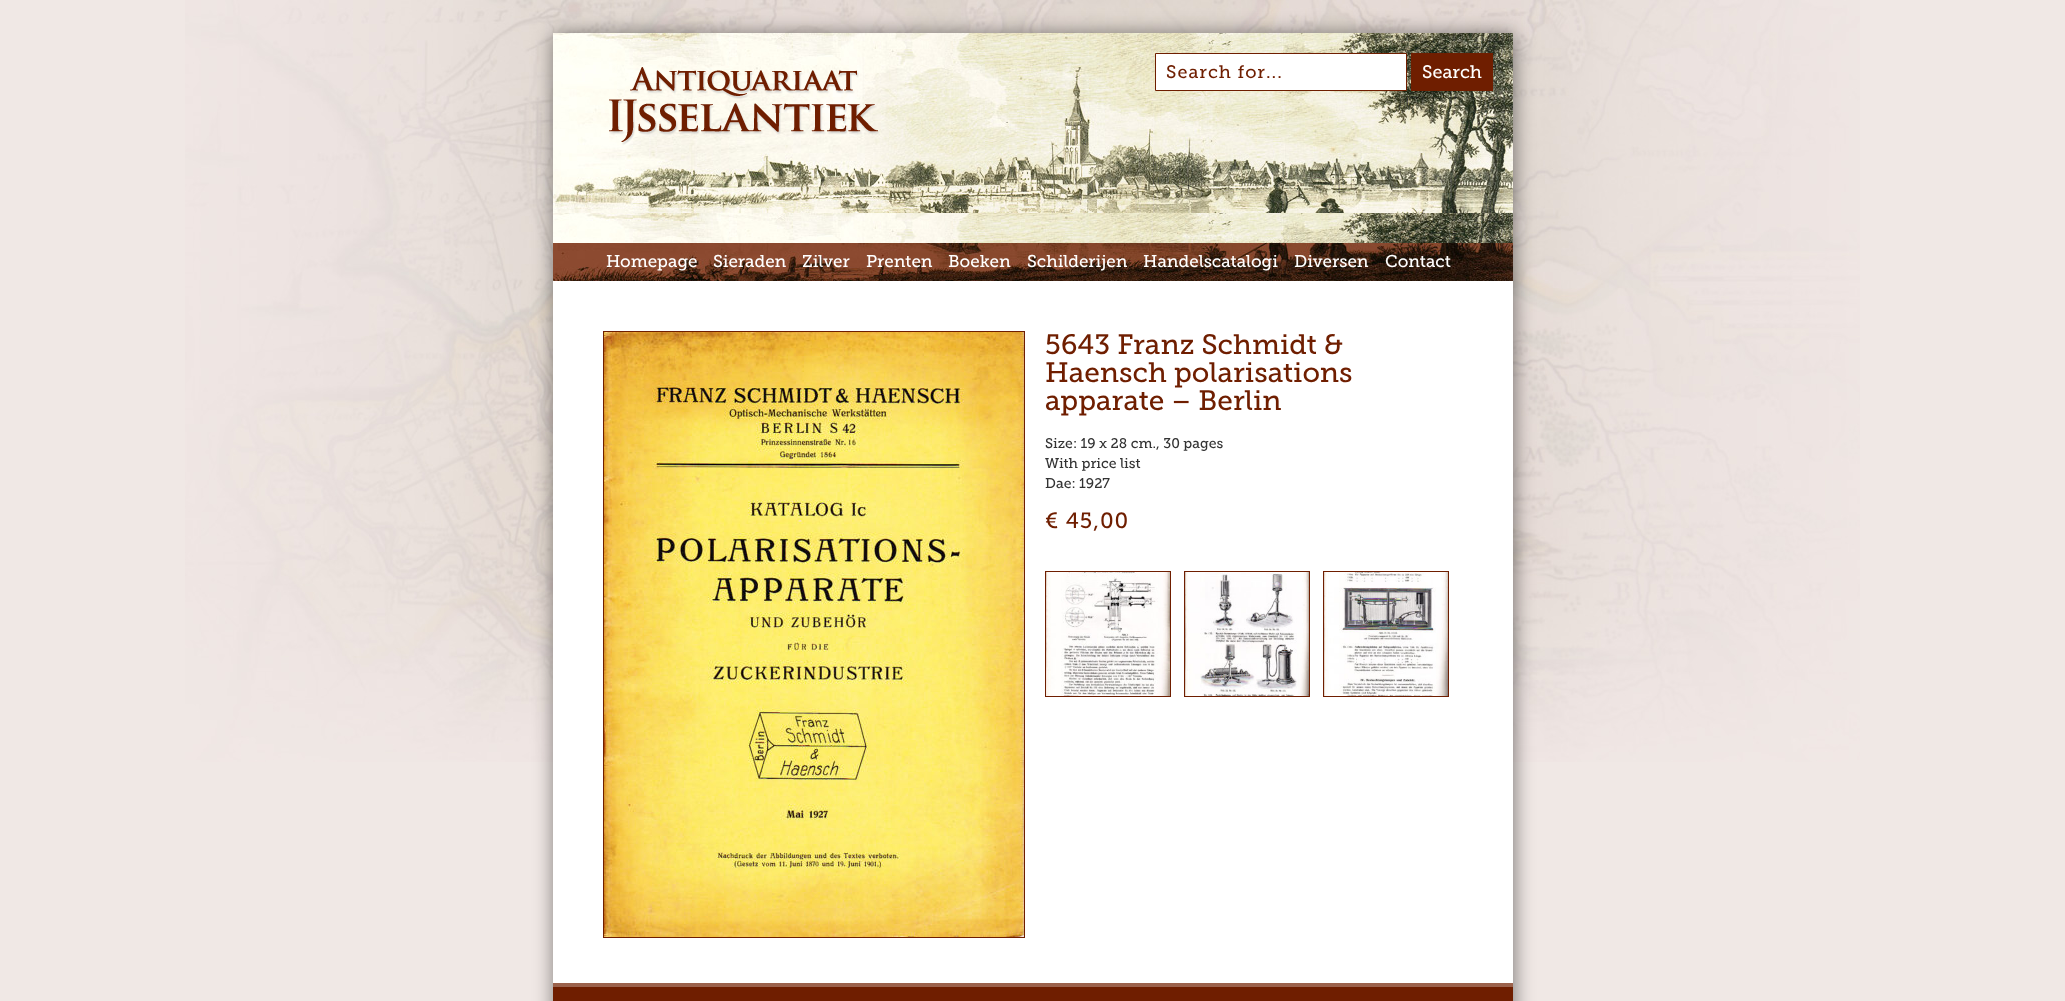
<!DOCTYPE html>
<meta charset="utf-8">
<style>body { margin: 0 } canvas { display: block }</style>
<canvas id="canvas" width="2065" height="1001"></canvas>
<script type="module">
  const canvas = document.getElementById("canvas");
  const ctx = canvas.getContext("2d");
  ctx.miterLimit = 4;
  ctx.fontKerning = "normal";
  async function loadImage(src) {
    const img = new Image();
    img.src = src;
    await img.decode();
    return img;
  }

  ctx.fillStyle = "#f0e8e5";
  ctx.fillRect(0, 0, 2065, 1001);
  ctx.drawImage(await loadImage("img1.png"), 185, 0, 1675, 762);
  ctx.fillStyle = "rgba(0, 0, 0, 0.5)";
  ctx.filter = "blur(10px)";
  ctx.beginPath();
  ctx.rect(554, 34, 960, 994);
  ctx.fill();
  ctx.filter = "none";
  ctx.fillStyle = "#ffffff";
  ctx.fillRect(553, 281, 960, 702);
  ctx.drawImage(await loadImage("img2.png"), 553, 33, 960, 210);
  ctx.drawImage(await loadImage("img3.png"), 609, 67, 271, 78);
  ctx.beginPath();
  ctx.rect(1155.5, 53.5, 251, 37);
  ctx.fill();
  ctx.strokeStyle = "#6f1e00";
  ctx.stroke();
  ctx.letterSpacing = "1px";
  ctx.font = "18px Museo Slab";
  ctx.fillStyle = "#6f1e00";
  ctx.fillText("Search for...", 1166, 78);
  ctx.fillRect(1411, 53, 82, 38);
  ctx.letterSpacing = "0px";
  ctx.fillStyle = "#ffffff";
  ctx.fillText("Search", 1422, 78);
  ctx.drawImage(await loadImage("img4.png"), 553, 243, 960, 38);
  ctx.font = "17px Museo Slab";
  ctx.fillText("Homepage", 606, 267);
  ctx.fillText("Sieraden", 713, 267);
  ctx.fillText("Zilver", 802, 267);
  ctx.fillText("Prenten", 866, 267);
  ctx.fillText("Boeken", 948, 267);
  ctx.fillText("Schilderijen", 1027, 267);
  ctx.fillText("Handelscatalogi", 1143, 267);
  ctx.fillText("Diversen", 1294, 267);
  ctx.fillText("Contact", 1385, 267);
  ctx.strokeRect(603.5, 331.5, 421, 606);
  ctx.drawImage(await loadImage("img5.png"), 604, 332, 420, 605);
  ctx.font = "28px Museo Slab";
  ctx.fillStyle = "#6f1e00";
  ctx.fillText("5643 Franz Schmidt &", 1045, 354);
  ctx.fillText("Haensch polarisations", 1045, 382);
  ctx.fillText("apparate – Berlin", 1045, 410);
  ctx.font = "14px Museo Slab";
  ctx.fillStyle = "#333333";
  ctx.fillText("Size: 19 x 28 cm., 30 pages", 1045, 448);
  ctx.fillText("With price list", 1045, 468);
  ctx.fillText("Dae: 1927", 1045, 488);
  ctx.letterSpacing = "1px";
  ctx.font = "22px Museo Slab";
  ctx.fillStyle = "#6f1e00";
  ctx.fillText("€ 45,00", 1045, 528);
  ctx.strokeRect(1045.5, 571.5, 125, 125);
  ctx.drawImage(await loadImage("img6.png"), 1046, 572, 124, 124);
  ctx.strokeRect(1184.5, 571.5, 125, 125);
  ctx.drawImage(await loadImage("img7.png"), 1185, 572, 124, 124);
  ctx.strokeRect(1323.5, 571.5, 125, 125);
  ctx.drawImage(await loadImage("img8.png"), 1324, 572, 124, 124);
  ctx.fillRect(553, 987, 960, 14);
  ctx.fillStyle = "#9b624c";
  ctx.fillRect(553, 983, 960, 4);
</script>
